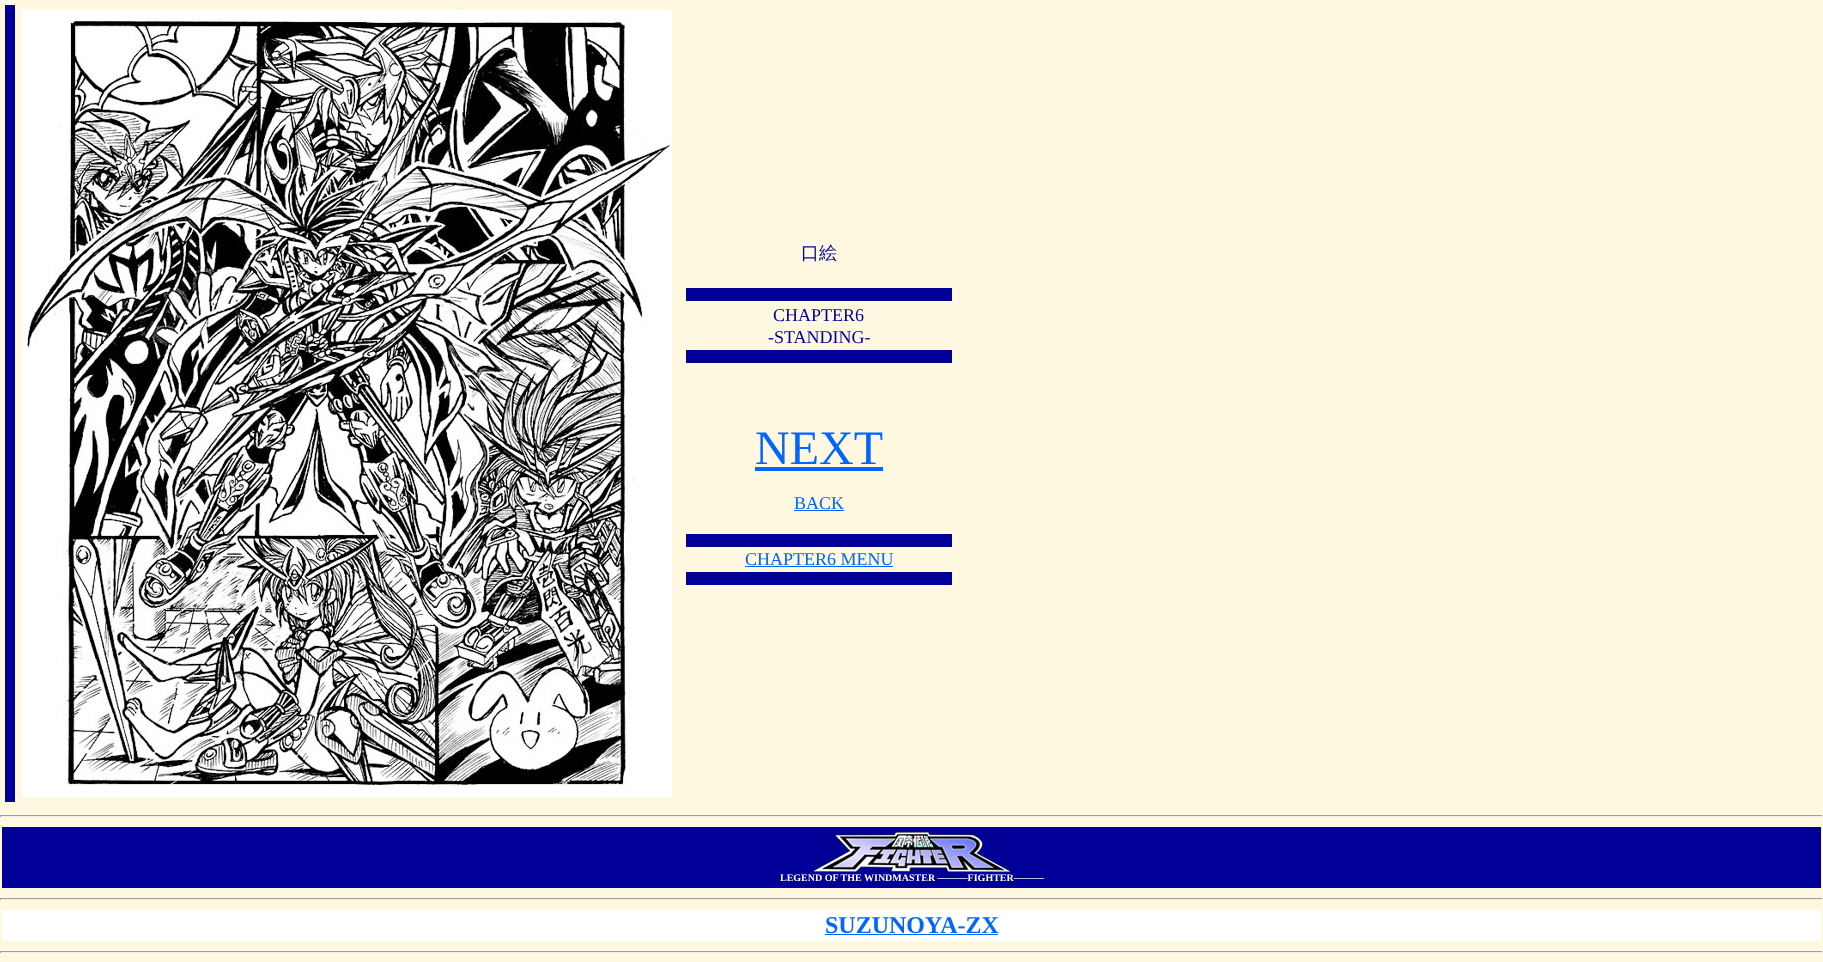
<!DOCTYPE html>
<meta charset="utf-8">
<style>body { margin: 0 } canvas { display: block }</style>
<canvas id="canvas" width="1823" height="962"></canvas>
<script type="module">
  const canvas = document.getElementById("canvas");
  const ctx = canvas.getContext("2d");
  ctx.miterLimit = 4;
  ctx.fontKerning = "normal";
  async function loadImage(src) {
    const img = new Image();
    img.src = src;
    await img.decode();
    return img;
  }

  ctx.fillStyle = "#fef8e0";
  ctx.fillRect(0, 0, 1823, 962);
  ctx.fillStyle = "#000099";
  ctx.fillRect(5, 5, 10, 797);
  ctx.drawImage(await loadImage("img1.png"), 22, 10, 650, 787);
  ctx.font = "500 18px WenQuanYi Zen Hei";
  ctx.fillText("口絵", 801, 259);
  ctx.fillRect(686, 288, 266, 13);
  ctx.font = "18px Liberation Serif";
  ctx.fillText("CHAPTER6", 773, 321);
  ctx.fillText("-STANDING-", 768, 343);
  ctx.fillRect(686, 350, 266, 13);
  ctx.font = "48px Liberation Serif";
  ctx.fillStyle = "#0066ff";
  ctx.fillText("NEXT", 755, 464);
  ctx.fillRect(755, 467, 128, 4);
  ctx.font = "18px Liberation Serif";
  ctx.fillText("BACK", 794, 509);
  ctx.fillRect(794, 510, 50, 1);
  ctx.fillStyle = "#000099";
  ctx.fillRect(686, 534, 266, 13);
  ctx.fillStyle = "#0066ff";
  ctx.fillText("CHAPTER6 MENU", 745, 565);
  ctx.fillRect(745, 566, 148, 1);
  ctx.fillStyle = "#000099";
  ctx.fillRect(686, 572, 266, 13);
  ctx.fillStyle = "#9f9f9f";
  ctx.fillRect(0, 815, 1823, 1);
  ctx.fillStyle = "#eeeeee";
  ctx.fillRect(1822, 815, 1, 2);
  ctx.fillRect(0, 816, 1823, 1);
  ctx.fillStyle = "#9f9f9f";
  ctx.fillRect(0, 815, 1, 2);
  ctx.fillStyle = "#000099";
  ctx.fillRect(2, 827, 1819, 61);
  ctx.drawImage(await loadImage("img2.png"), 812, 832, 200, 40);
  ctx.font = "bold 10px Liberation Serif";
  ctx.fillStyle = "#ffffff";
  ctx.fillText("LEGEND OF THE WINDMASTER ―――FIGHTER―――", 780, 881);
  ctx.fillStyle = "#9f9f9f";
  ctx.fillRect(0, 898, 1823, 1);
  ctx.fillStyle = "#eeeeee";
  ctx.fillRect(1822, 898, 1, 2);
  ctx.fillRect(0, 899, 1823, 1);
  ctx.fillStyle = "#9f9f9f";
  ctx.fillRect(0, 898, 1, 2);
  ctx.fillStyle = "#ffffff";
  ctx.fillRect(2, 910, 1819, 31);
  ctx.font = "bold 24px Liberation Serif";
  ctx.fillStyle = "#0066ff";
  ctx.fillText("SUZUNOYA-ZX", 825, 933);
  ctx.fillRect(825, 934, 173, 1);
  ctx.fillStyle = "#9f9f9f";
  ctx.fillRect(0, 951, 1823, 1);
  ctx.fillStyle = "#eeeeee";
  ctx.fillRect(1822, 951, 1, 2);
  ctx.fillRect(0, 952, 1823, 1);
  ctx.fillStyle = "#9f9f9f";
  ctx.fillRect(0, 951, 1, 2);
</script>
